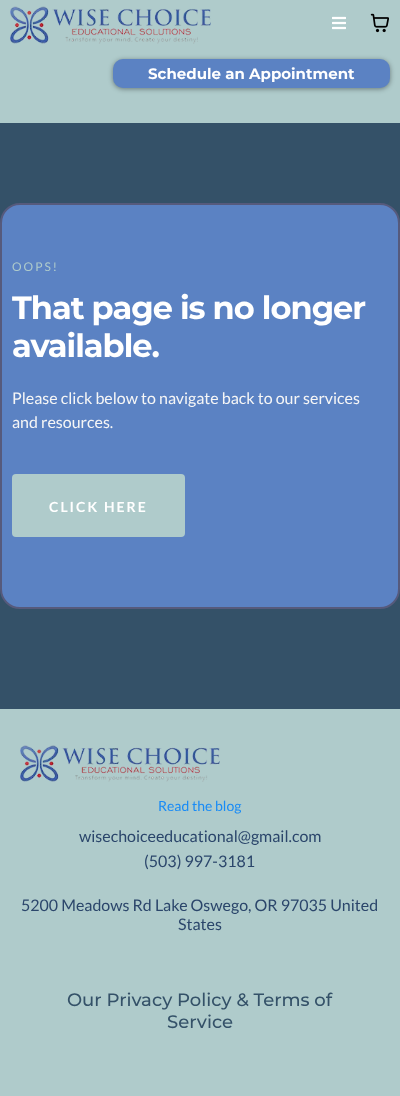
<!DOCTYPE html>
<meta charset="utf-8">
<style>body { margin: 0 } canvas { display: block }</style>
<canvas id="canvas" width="400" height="1096"></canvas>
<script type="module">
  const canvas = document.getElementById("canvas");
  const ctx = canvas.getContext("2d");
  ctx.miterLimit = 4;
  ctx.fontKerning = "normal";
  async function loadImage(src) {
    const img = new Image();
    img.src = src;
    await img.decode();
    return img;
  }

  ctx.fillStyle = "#afcbcb";
  ctx.fillRect(0, 0, 400, 1096);
  ctx.drawImage(await loadImage("img1.png"), 10, 6, 201, 38);
  ctx.drawImage(await loadImage("img2.png"), 332, 16, 14, 14);
  ctx.drawImage(await loadImage("img3.png"), 370, 13, 19, 20);
  ctx.fillStyle = "rgba(0, 0, 0, 0.4)";
  ctx.filter = "blur(2.5px)";
  ctx.beginPath();
  ctx.roundRect(113, 60, 277, 29, 10);
  ctx.fill();
  ctx.filter = "none";
  ctx.fillStyle = "#5b82c3";
  ctx.beginPath();
  ctx.roundRect(113, 59, 277, 29, 10);
  ctx.fill();
  ctx.font = "bold 15px Montserrat";
  ctx.fillStyle = "#ffffff";
  ctx.fillText("Schedule an Appointment", 148, 79);
  ctx.fillStyle = "#345168";
  ctx.fillRect(0, 123, 400, 586);
  ctx.fillStyle = "#5b82c3";
  ctx.beginPath();
  ctx.roundRect(1, 204, 398, 404, 19);
  ctx.fill();
  ctx.strokeStyle = "#565a7c";
  ctx.lineWidth = 2;
  ctx.stroke();
  ctx.letterSpacing = "2px";
  ctx.font = "12px Lato";
  ctx.fillStyle = "#afcbcb";
  ctx.fillText("OOPS!", 12, 271);
  ctx.letterSpacing = "-1px";
  ctx.font = "bold 32px Montserrat";
  ctx.fillStyle = "#ffffff";
  ctx.fillText("That page is no longer", 12, 319);
  ctx.fillText("available.", 12, 357);
  ctx.letterSpacing = "0px";
  ctx.font = "16px Lato";
  ctx.fillStyle = "#f6f6f6";
  ctx.fillText("Please click below to navigate back to our services", 12, 404);
  ctx.fillText("and resources.", 12, 428);
  ctx.fillStyle = "#afcbcb";
  ctx.beginPath();
  ctx.roundRect(12, 474, 173, 63, 4);
  ctx.fill();
  ctx.letterSpacing = "2px";
  ctx.font = "bold 14px Lato";
  ctx.fillStyle = "#ffffff";
  ctx.fillText("CLICK HERE", 49, 512);
  ctx.drawImage(await loadImage("img4.png"), 20, 745, 200, 37);
  ctx.letterSpacing = "0px";
  ctx.font = "14px Lato";
  ctx.fillStyle = "#188bf6";
  ctx.fillText("Read the blog", 158, 811);
  ctx.font = "16px Lato";
  ctx.fillStyle = "#2b466b";
  ctx.fillText("wisechoiceeducational@gmail.com", 79, 842);
  ctx.fillText("(503) 997-3181", 144, 867);
  ctx.fillText("5200 Meadows Rd Lake Oswego, OR 97035 United", 21, 911);
  ctx.fillText("States", 178, 930);
  ctx.font = "500 18px Montserrat";
  ctx.fillStyle = "#345168";
  ctx.fillText("Our Privacy Policy & Terms of", 67, 1006);
  ctx.fillText("Service", 167, 1028);
</script>
